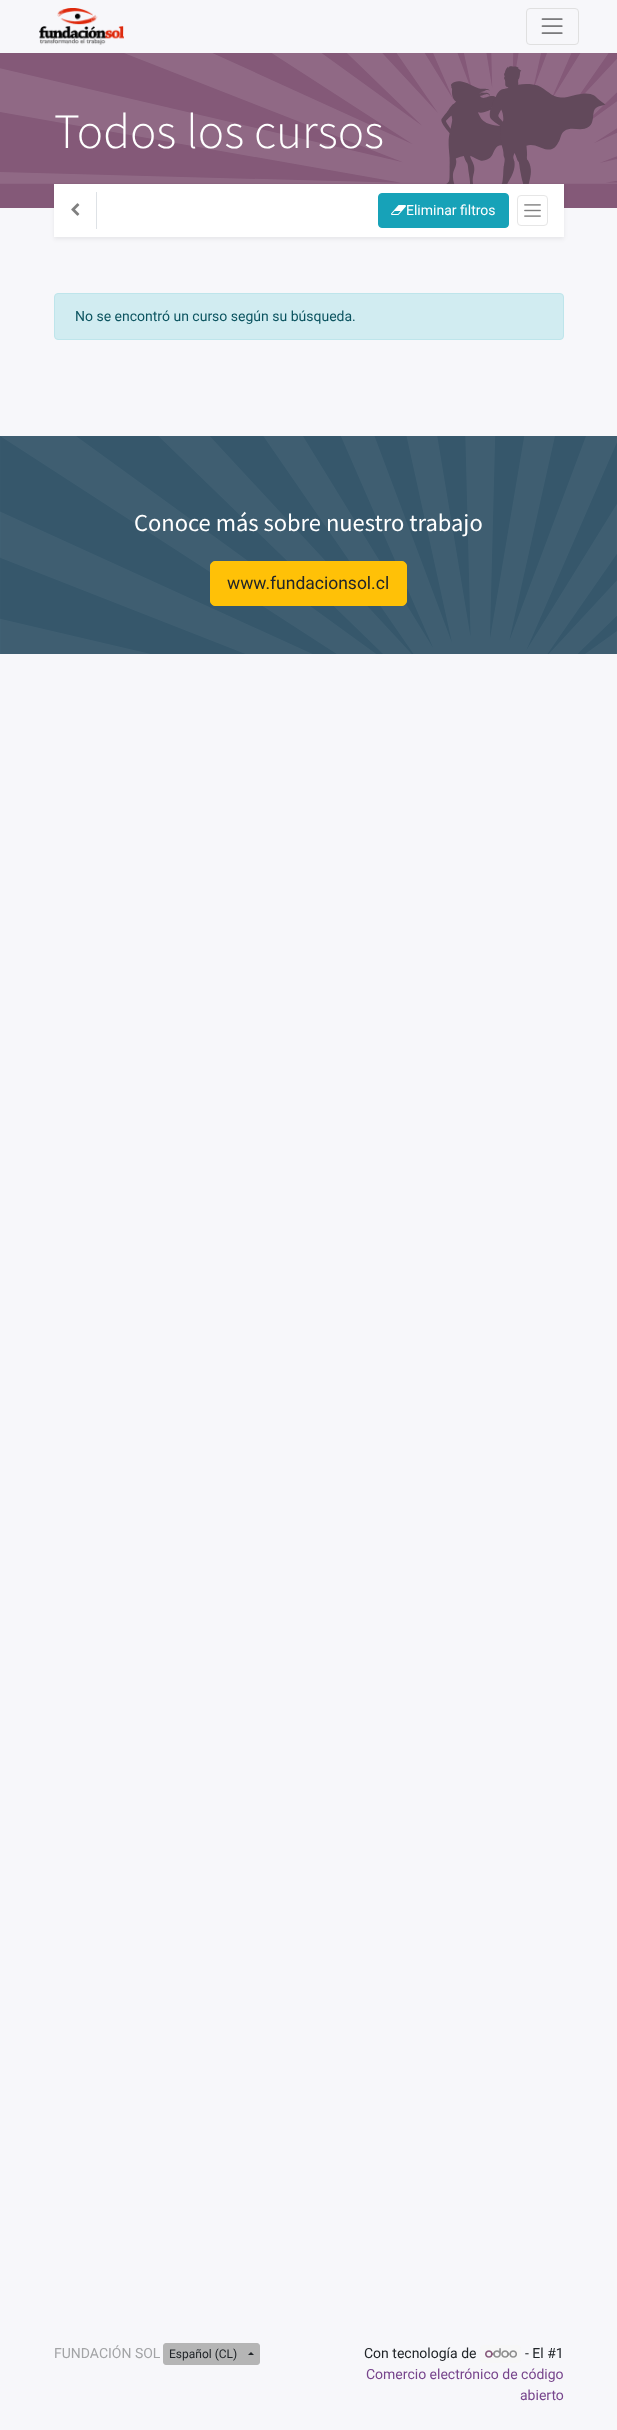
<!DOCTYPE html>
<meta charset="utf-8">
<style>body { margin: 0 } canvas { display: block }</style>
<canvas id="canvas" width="617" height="2430"></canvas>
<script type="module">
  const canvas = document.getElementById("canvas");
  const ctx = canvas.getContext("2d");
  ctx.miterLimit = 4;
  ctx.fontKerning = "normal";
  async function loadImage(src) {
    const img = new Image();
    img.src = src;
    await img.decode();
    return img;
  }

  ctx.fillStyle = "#f7f7fa";
  ctx.fillRect(0, 0, 617, 2430);
  ctx.drawImage(await loadImage("img1.png"), 39, 8, 85, 37);
  ctx.beginPath();
  ctx.roundRect(526.5, 8.5, 52, 36, 3.5);
  ctx.strokeStyle = "#e0e0e0";
  ctx.stroke();
  ctx.drawImage(await loadImage("img2.png"), 541, 18, 22, 16);
  ctx.drawImage(await loadImage("img3.png"), 0, 53, 617, 155);
  ctx.font = "300 49.25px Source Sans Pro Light";
  ctx.fillStyle = "#ffffff";
  ctx.fillText("Todos los cursos", 54, 148);
  ctx.fillStyle = "rgba(0, 0, 0, 0.07)";
  ctx.filter = "blur(2px)";
  ctx.beginPath();
  ctx.rect(54, 186, 510, 53);
  ctx.fill();
  ctx.filter = "none";
  ctx.fillStyle = "#ffffff";
  ctx.fillRect(54, 184, 510, 53);
  ctx.fillStyle = "#dee2e6";
  ctx.fillRect(96, 192, 1, 37);
  ctx.drawImage(await loadImage("img4.png"), 71, 203, 9, 13);
  ctx.fillStyle = "#17a2b8";
  ctx.beginPath();
  ctx.roundRect(378.5, 193.5, 130, 34, 3.5);
  ctx.fill();
  ctx.strokeStyle = "#17a2b8";
  ctx.stroke();
  ctx.drawImage(await loadImage("img5.png"), 391, 205, 15, 10);
  ctx.font = "14px Roboto";
  ctx.fillStyle = "#ffffff";
  ctx.fillText("Eliminar filtros", 406, 215);
  ctx.beginPath();
  ctx.roundRect(517.5, 195.5, 30, 30, 3.5);
  ctx.strokeStyle = "#e6e6e6";
  ctx.stroke();
  ctx.drawImage(await loadImage("img6.png"), 524, 204, 17, 13);
  ctx.fillStyle = "#d1ecf1";
  ctx.beginPath();
  ctx.roundRect(54.5, 293.5, 509, 46, 3.5);
  ctx.fill();
  ctx.strokeStyle = "#bee5eb";
  ctx.stroke();
  ctx.fillStyle = "#0c5460";
  ctx.fillText("No se encontró un curso según su búsqueda.", 75, 321);
  ctx.drawImage(await loadImage("img7.png"), 0, 436, 617, 218);
  ctx.font = "24.5px Source Sans Pro";
  ctx.fillStyle = "#ffffff";
  ctx.fillText("Conoce más sobre nuestro trabajo", 134, 531);
  ctx.fillStyle = "#ffc107";
  ctx.beginPath();
  ctx.roundRect(210.5, 561.5, 196, 44, 4.5);
  ctx.fill();
  ctx.strokeStyle = "#ffc107";
  ctx.stroke();
  ctx.font = "17.5px Roboto";
  ctx.fillStyle = "#212529";
  ctx.fillText("www.fundacionsol.cl", 227, 589);
  ctx.font = "14px Roboto";
  ctx.fillStyle = "#a3a4a6";
  ctx.fillText("FUNDACIÓN SOL", 54, 2358);
  ctx.fillStyle = "#b5b5b5";
  ctx.beginPath();
  ctx.roundRect(163.5, 2343.5, 96, 21, 2.5);
  ctx.fill();
  ctx.strokeStyle = "#b5b5b5";
  ctx.stroke();
  ctx.font = "12px Roboto";
  ctx.fillStyle = "#212529";
  ctx.fillText("Español (CL)", 169, 2358);
  ctx.beginPath();
  ctx.moveTo(254, 2355);
  ctx.lineTo(248, 2355);
  ctx.lineTo(251, 2352);
  ctx.closePath();
  ctx.fill();
  ctx.font = "14px Roboto";
  ctx.fillText("Con tecnología de", 364, 2358);
  ctx.fillStyle = "#f7f7f7";
  ctx.beginPath();
  ctx.roundRect(480, 2345, 41, 18, 4);
  ctx.fill();
  ctx.drawImage(await loadImage("img8.png"), 485, 2348, 32, 10);
  ctx.fillStyle = "#212529";
  ctx.fillText("- El #1", 525, 2358);
  ctx.fillStyle = "#77458c";
  ctx.fillText("Comercio electrónico de código", 366, 2379);
  ctx.fillText("abierto", 520, 2400);
</script>
